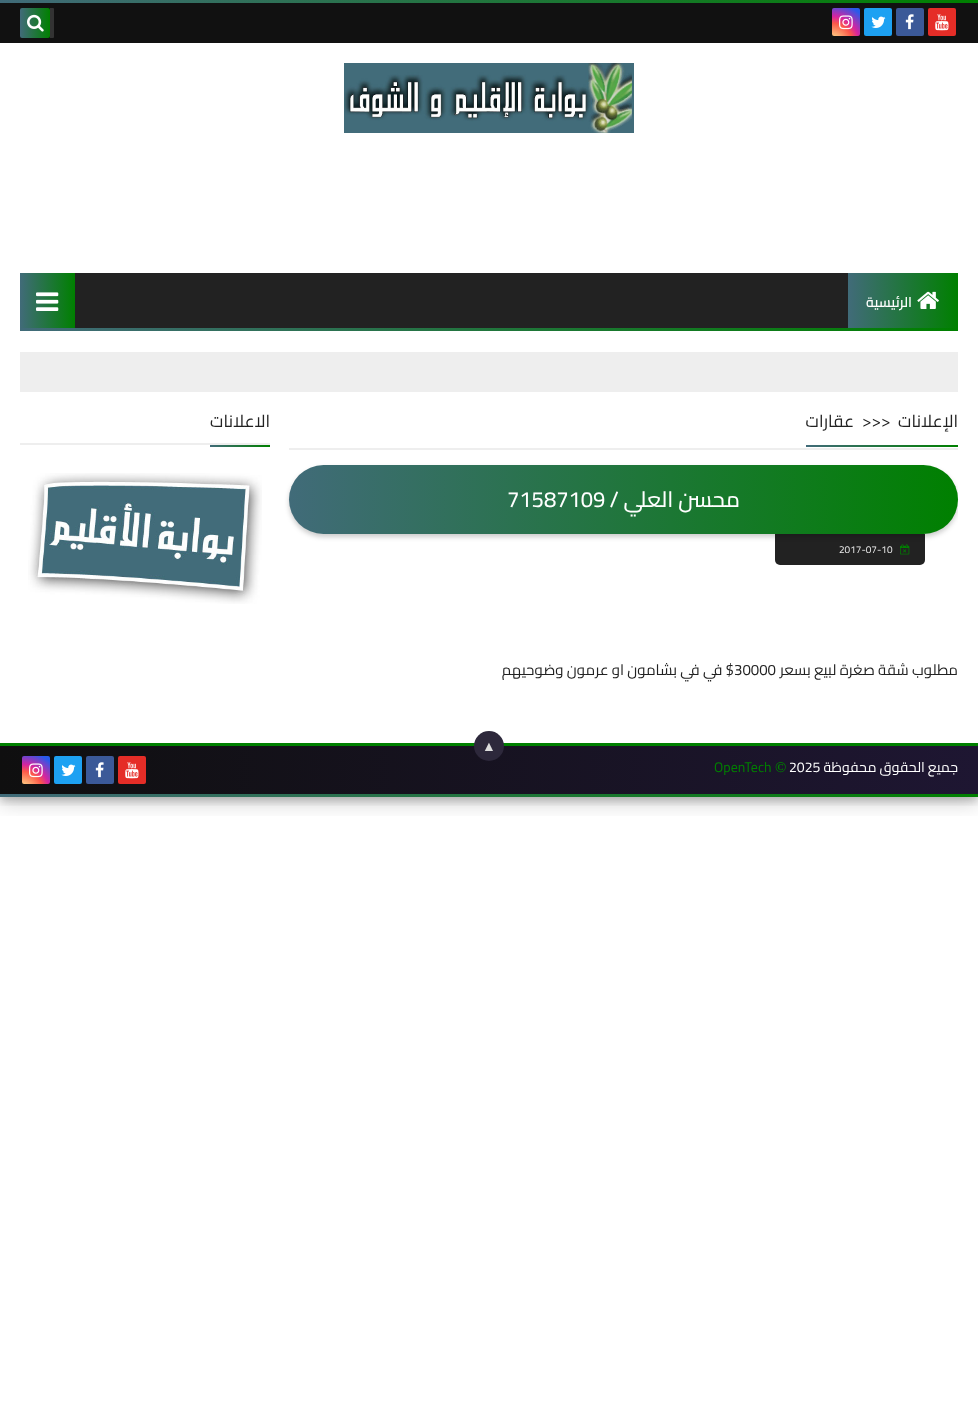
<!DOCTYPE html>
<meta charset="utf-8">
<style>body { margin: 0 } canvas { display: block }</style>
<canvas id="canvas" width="978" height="1426"></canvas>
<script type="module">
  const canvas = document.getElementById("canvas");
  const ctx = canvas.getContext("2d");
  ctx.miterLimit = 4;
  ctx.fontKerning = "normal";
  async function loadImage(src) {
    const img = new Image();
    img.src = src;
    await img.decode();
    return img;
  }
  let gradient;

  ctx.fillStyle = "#ffffff";
  ctx.fillRect(0, 0, 978, 1426);
  ctx.save();
  ctx.beginPath();
  ctx.rect(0, 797, 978, 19);
  ctx.clip();
  ctx.fillStyle = "rgba(0, 0, 0, 0.19)";
  ctx.filter = "blur(10px)";
  ctx.beginPath();
  ctx.rect(0, 6, 978, 797);
  ctx.fill();
  ctx.filter = "none";
  ctx.restore();
  ctx.save();
  ctx.beginPath();
  ctx.rect(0, 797, 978, 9);
  ctx.clip();
  ctx.fillStyle = "rgba(0, 0, 0, 0.2)";
  ctx.filter = "blur(4px)";
  ctx.beginPath();
  ctx.rect(0, 4, 978, 797);
  ctx.fill();
  ctx.filter = "none";
  ctx.restore();
  gradient = ctx.createLinearGradient(978, 1.5, 0, 1.5);
  gradient.addColorStop(0, "#008000");
  gradient.addColorStop(1, "#416b79");
  ctx.fillStyle = gradient;
  ctx.fillRect(0, 0, 978, 3);
  ctx.fillStyle = "#111111";
  ctx.fillRect(0, 3, 978, 40);
  ctx.fillStyle = "#e52d27";
  ctx.beginPath();
  ctx.roundRect(928, 8, 28, 28, 2);
  ctx.fill();
  ctx.drawImage(await loadImage("img1.png"), 935, 14, 14, 17);
  ctx.fillStyle = "#3b5998";
  ctx.beginPath();
  ctx.roundRect(896, 8, 28, 28, 2);
  ctx.fill();
  ctx.drawImage(await loadImage("img2.png"), 905, 14, 9, 16);
  ctx.fillStyle = "#1da1f2";
  ctx.beginPath();
  ctx.roundRect(864, 8, 28, 28, 2);
  ctx.fill();
  ctx.drawImage(await loadImage("img3.png"), 871, 16, 15, 12);
  gradient = ctx.createRadialGradient(832, 44, 0, 832, 44, 46);
  gradient.addColorStop(0, "#fdf497");
  gradient.addColorStop(0.05, "#fdf497");
  gradient.addColorStop(0.45, "#fd5949");
  gradient.addColorStop(0.6, "#d6249f");
  gradient.addColorStop(0.9, "#285aeb");
  ctx.fillStyle = gradient;
  ctx.beginPath();
  ctx.roundRect(832, 8, 28, 28, 2);
  ctx.fill();
  ctx.drawImage(await loadImage("img4.png"), 839, 15, 14, 15);
  ctx.fillStyle = "#333333";
  ctx.beginPath();
  ctx.roundRect(50, 8, 4, 30, [0, 1, 1, 0]);
  ctx.fill();
  gradient = ctx.createLinearGradient(50, 23, 20, 23);
  gradient.addColorStop(0, "#008000");
  gradient.addColorStop(1, "#416b79");
  ctx.fillStyle = gradient;
  ctx.beginPath();
  ctx.roundRect(20, 8, 30, 30, 2);
  ctx.fill();
  ctx.drawImage(await loadImage("img5.png"), 27, 14, 17, 18);
  ctx.drawImage(await loadImage("img6.png"), 344, 63, 290, 70);
  ctx.fillStyle = "#222222";
  ctx.fillRect(75, 273, 773, 55);
  gradient = ctx.createLinearGradient(958, 301, 848, 301);
  gradient.addColorStop(0, "#008000");
  gradient.addColorStop(1, "#416b79");
  ctx.fillStyle = gradient;
  ctx.fillRect(848, 273, 110, 55);
  ctx.drawImage(await loadImage("img7.png"), 917, 291, 22, 18);
  ctx.direction = "rtl";
  ctx.font = "600 14px Cairo";
  ctx.fillStyle = "#ffffff";
  ctx.fillText("الرئيسية", 912, 307);
  gradient = ctx.createLinearGradient(75, 301, 20, 301);
  gradient.addColorStop(0, "#008000");
  gradient.addColorStop(1, "#416b79");
  ctx.fillStyle = gradient;
  ctx.fillRect(20, 273, 55, 55);
  ctx.drawImage(await loadImage("img8.png"), 36, 292, 23, 19);
  gradient = ctx.createLinearGradient(958, 330, 20, 329);
  gradient.addColorStop(0, "#008000");
  gradient.addColorStop(1, "#416b79");
  ctx.fillStyle = gradient;
  ctx.fillRect(20, 328, 938, 3);
  ctx.fillStyle = "#eeeeee";
  ctx.fillRect(20, 352, 938, 40);
  ctx.fillRect(289, 448, 669, 2);
  ctx.font = "17px Cairo";
  ctx.fillStyle = "#222222";
  ctx.fillText("الإعلانات", 958, 427);
  ctx.direction = "ltr";
  ctx.fillText(">>>", 862, 427);
  ctx.direction = "rtl";
  ctx.fillText("عقارات", 854, 427);
  gradient = ctx.createLinearGradient(958, 446, 806, 446);
  gradient.addColorStop(0, "#008000");
  gradient.addColorStop(1, "#416b79");
  ctx.fillStyle = gradient;
  ctx.fillRect(806, 445, 152, 2);
  ctx.fillStyle = "#222222";
  ctx.beginPath();
  ctx.roundRect(775, 534, 150, 31, [0, 0, 5, 5]);
  ctx.fill();
  ctx.drawImage(await loadImage("img9.png"), 900, 544, 10, 11);
  ctx.save();
  ctx.beginPath();
  ctx.rect(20, 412, 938, 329);
  ctx.clip();
  ctx.fillStyle = "rgba(0, 0, 0, 0.2)";
  ctx.filter = "blur(2.5px)";
  ctx.beginPath();
  ctx.roundRect(289, 468, 669, 69, 34.5);
  ctx.fill();
  ctx.filter = "none";
  ctx.restore();
  gradient = ctx.createLinearGradient(958, 500, 289, 500);
  gradient.addColorStop(0, "#008000");
  gradient.addColorStop(1, "#416b79");
  ctx.fillStyle = gradient;
  ctx.beginPath();
  ctx.roundRect(289, 465, 669, 69, 34.5);
  ctx.fill();
  ctx.font = "500 22px Cairo";
  ctx.fillStyle = "#ffffff";
  ctx.fillText("محسن العلي /", 740, 507);
  ctx.direction = "ltr";
  ctx.fillText("71587109", 507, 507);
  ctx.font = "10px Cairo";
  ctx.fillStyle = "#eeeeee";
  ctx.fillText("2017-07-10", 839, 553);
  ctx.direction = "rtl";
  ctx.font = "15px Cairo";
  ctx.fillStyle = "#222222";
  ctx.fillText("مطلوب شقة صغرة لبيع بسعر", 958, 675);
  ctx.direction = "ltr";
  ctx.fillText("30000", 734, 675);
  ctx.direction = "rtl";
  ctx.fillText("$ في في بشامون او عرمون وضوحيهم", 734, 675);
  ctx.fillStyle = "#eeeeee";
  ctx.fillRect(20, 443, 250, 2);
  ctx.font = "17px Cairo";
  ctx.fillStyle = "#222222";
  ctx.fillText("الاعلانات", 270, 427);
  gradient = ctx.createLinearGradient(270, 446, 210, 446);
  gradient.addColorStop(0, "#008000");
  gradient.addColorStop(1, "#416b79");
  ctx.fillStyle = gradient;
  ctx.fillRect(210, 445, 60, 2);
  ctx.drawImage(await loadImage("img10.png"), 28, 473, 234, 131);
  gradient = ctx.createLinearGradient(978, 770, 0, 770);
  gradient.addColorStop(0, "#1e1632");
  gradient.addColorStop(1, "#0f0f0f");
  ctx.fillStyle = gradient;
  ctx.fillRect(0, 746, 978, 48);
  ctx.fillStyle = "#008000";
  ctx.fillRect(0, 743, 978, 3);
  ctx.fillStyle = "#2d283b";
  ctx.beginPath();
  ctx.arc(489, 746, 15, 0, Math.PI * 2);
  ctx.fill();
  ctx.direction = "ltr";
  ctx.font = "14px Liberation Sans";
  ctx.fillStyle = "#dddddd";
  ctx.fillText("▲", 482, 751);
  ctx.direction = "rtl";
  ctx.font = "14px Cairo";
  ctx.fillStyle = "#ffffff";
  ctx.fillText("جميع الحقوق محفوظة", 958, 772);
  ctx.direction = "ltr";
  ctx.fillText("2025", 789, 772);
  ctx.font = "bold 15px Liberation Serif";
  ctx.fillStyle = "#008000";
  ctx.fillText("©", 775, 772);
  ctx.font = "14px Cairo";
  ctx.fillText("OpenTech", 714, 772);
  ctx.fillStyle = "#e52d27";
  ctx.beginPath();
  ctx.roundRect(118, 756, 28, 28, 2);
  ctx.fill();
  ctx.drawImage(await loadImage("img1.png"), 125, 762, 14, 17);
  ctx.fillStyle = "#3b5998";
  ctx.beginPath();
  ctx.roundRect(86, 756, 28, 28, 2);
  ctx.fill();
  ctx.drawImage(await loadImage("img2.png"), 95, 762, 9, 16);
  ctx.fillStyle = "#1da1f2";
  ctx.beginPath();
  ctx.roundRect(54, 756, 28, 28, 2);
  ctx.fill();
  ctx.drawImage(await loadImage("img3.png"), 61, 764, 15, 12);
  gradient = ctx.createRadialGradient(22, 792, 0, 22, 792, 46);
  gradient.addColorStop(0, "#fdf497");
  gradient.addColorStop(0.05, "#fdf497");
  gradient.addColorStop(0.45, "#fd5949");
  gradient.addColorStop(0.6, "#d6249f");
  gradient.addColorStop(0.9, "#285aeb");
  ctx.fillStyle = gradient;
  ctx.beginPath();
  ctx.roundRect(22, 756, 28, 28, 2);
  ctx.fill();
  ctx.drawImage(await loadImage("img4.png"), 29, 763, 14, 15);
  gradient = ctx.createLinearGradient(978, 796, 0, 796);
  gradient.addColorStop(0, "#008000");
  gradient.addColorStop(1, "#416b79");
  ctx.fillStyle = gradient;
  ctx.fillRect(0, 794, 978, 3);
</script>
